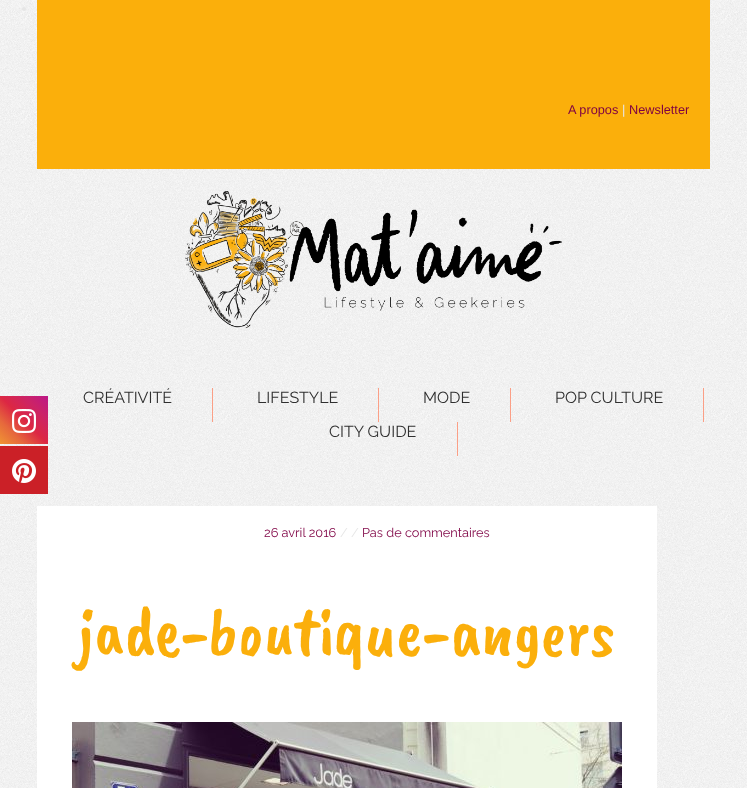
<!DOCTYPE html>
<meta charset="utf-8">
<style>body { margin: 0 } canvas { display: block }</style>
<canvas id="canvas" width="747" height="788"></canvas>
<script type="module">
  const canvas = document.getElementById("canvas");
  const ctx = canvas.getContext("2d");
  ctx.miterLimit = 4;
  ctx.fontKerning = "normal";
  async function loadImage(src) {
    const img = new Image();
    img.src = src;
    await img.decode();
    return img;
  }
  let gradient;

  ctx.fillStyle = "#ffffff";
  ctx.fillRect(0, 0, 747, 788);
  ctx.drawImage(await loadImage("img3.png"), 0, 0, 747, 788);
  gradient = ctx.createLinearGradient(0, 444, 48, 396);
  gradient.addColorStop(0, "#f09433");
  gradient.addColorStop(0.25, "#e6683c");
  gradient.addColorStop(0.5, "#dc2743");
  gradient.addColorStop(0.75, "#cc2366");
  gradient.addColorStop(1, "#bc1888");
  ctx.fillStyle = gradient;
  ctx.fillRect(0, 396, 48, 48);
  ctx.drawImage(await loadImage("img1.png"), 12, 409, 24, 24);
  ctx.fillStyle = "#cb2027";
  ctx.fillRect(0, 446, 48, 48);
  ctx.drawImage(await loadImage("img2.png"), 12, 459, 24, 24);
  ctx.fillStyle = "#fbaf0b";
  ctx.fillRect(37, 0, 673, 169);
  ctx.fillStyle = "#e6e6e6";
  ctx.beginPath();
  ctx.arc(24, 9, 2, 0, Math.PI * 2);
  ctx.fill();
  ctx.font = "12.75px Liberation Sans";
  ctx.fillStyle = "#7e0043";
  ctx.fillText("A propos", 568, 114);
  ctx.fillStyle = "#e6e6e6";
  ctx.fillText("|", 622, 114);
  ctx.fillStyle = "#7e0043";
  ctx.fillText("Newsletter", 629, 114);
  ctx.drawImage(await loadImage("img4.png"), 185, 191, 377, 137);
  ctx.fillStyle = "#fb9f86";
  ctx.fillRect(212, 388, 1, 34);
  ctx.font = "16px Raleway";
  ctx.fillStyle = "#2f2f2f";
  ctx.fillText("CRÉATIVITÉ", 83, 403);
  ctx.fillStyle = "#fb9f86";
  ctx.fillRect(378, 388, 1, 34);
  ctx.fillStyle = "#2f2f2f";
  ctx.fillText("LIFESTYLE", 257, 403);
  ctx.fillStyle = "#fb9f86";
  ctx.fillRect(510, 388, 1, 34);
  ctx.fillStyle = "#2f2f2f";
  ctx.fillText("MODE", 423, 403);
  ctx.fillStyle = "#fb9f86";
  ctx.fillRect(703, 388, 1, 34);
  ctx.fillStyle = "#2f2f2f";
  ctx.fillText("POP CULTURE", 555, 403);
  ctx.fillStyle = "#fb9f86";
  ctx.fillRect(457, 422, 1, 34);
  ctx.fillStyle = "#2f2f2f";
  ctx.fillText("CITY GUIDE", 329, 437);
  ctx.fillStyle = "#ffffff";
  ctx.fillRect(37, 506, 620, 282);
  ctx.font = "12.75px Raleway";
  ctx.fillStyle = "#7e0043";
  ctx.fillText("26 avril 2016", 264, 537);
  ctx.fillStyle = "#e6e6e6";
  ctx.fillText("/ /", 340, 537);
  ctx.fillStyle = "#7e0043";
  ctx.fillText("Pas de commentaires", 362, 537);
  ctx.font = "69px Caveat Brush";
  ctx.fillStyle = "#fbaf0b";
  ctx.fillText("jade-boutique-angers", 78, 654);
  ctx.drawImage(await loadImage("img5.png"), 72, 722, 550, 66);
</script>
